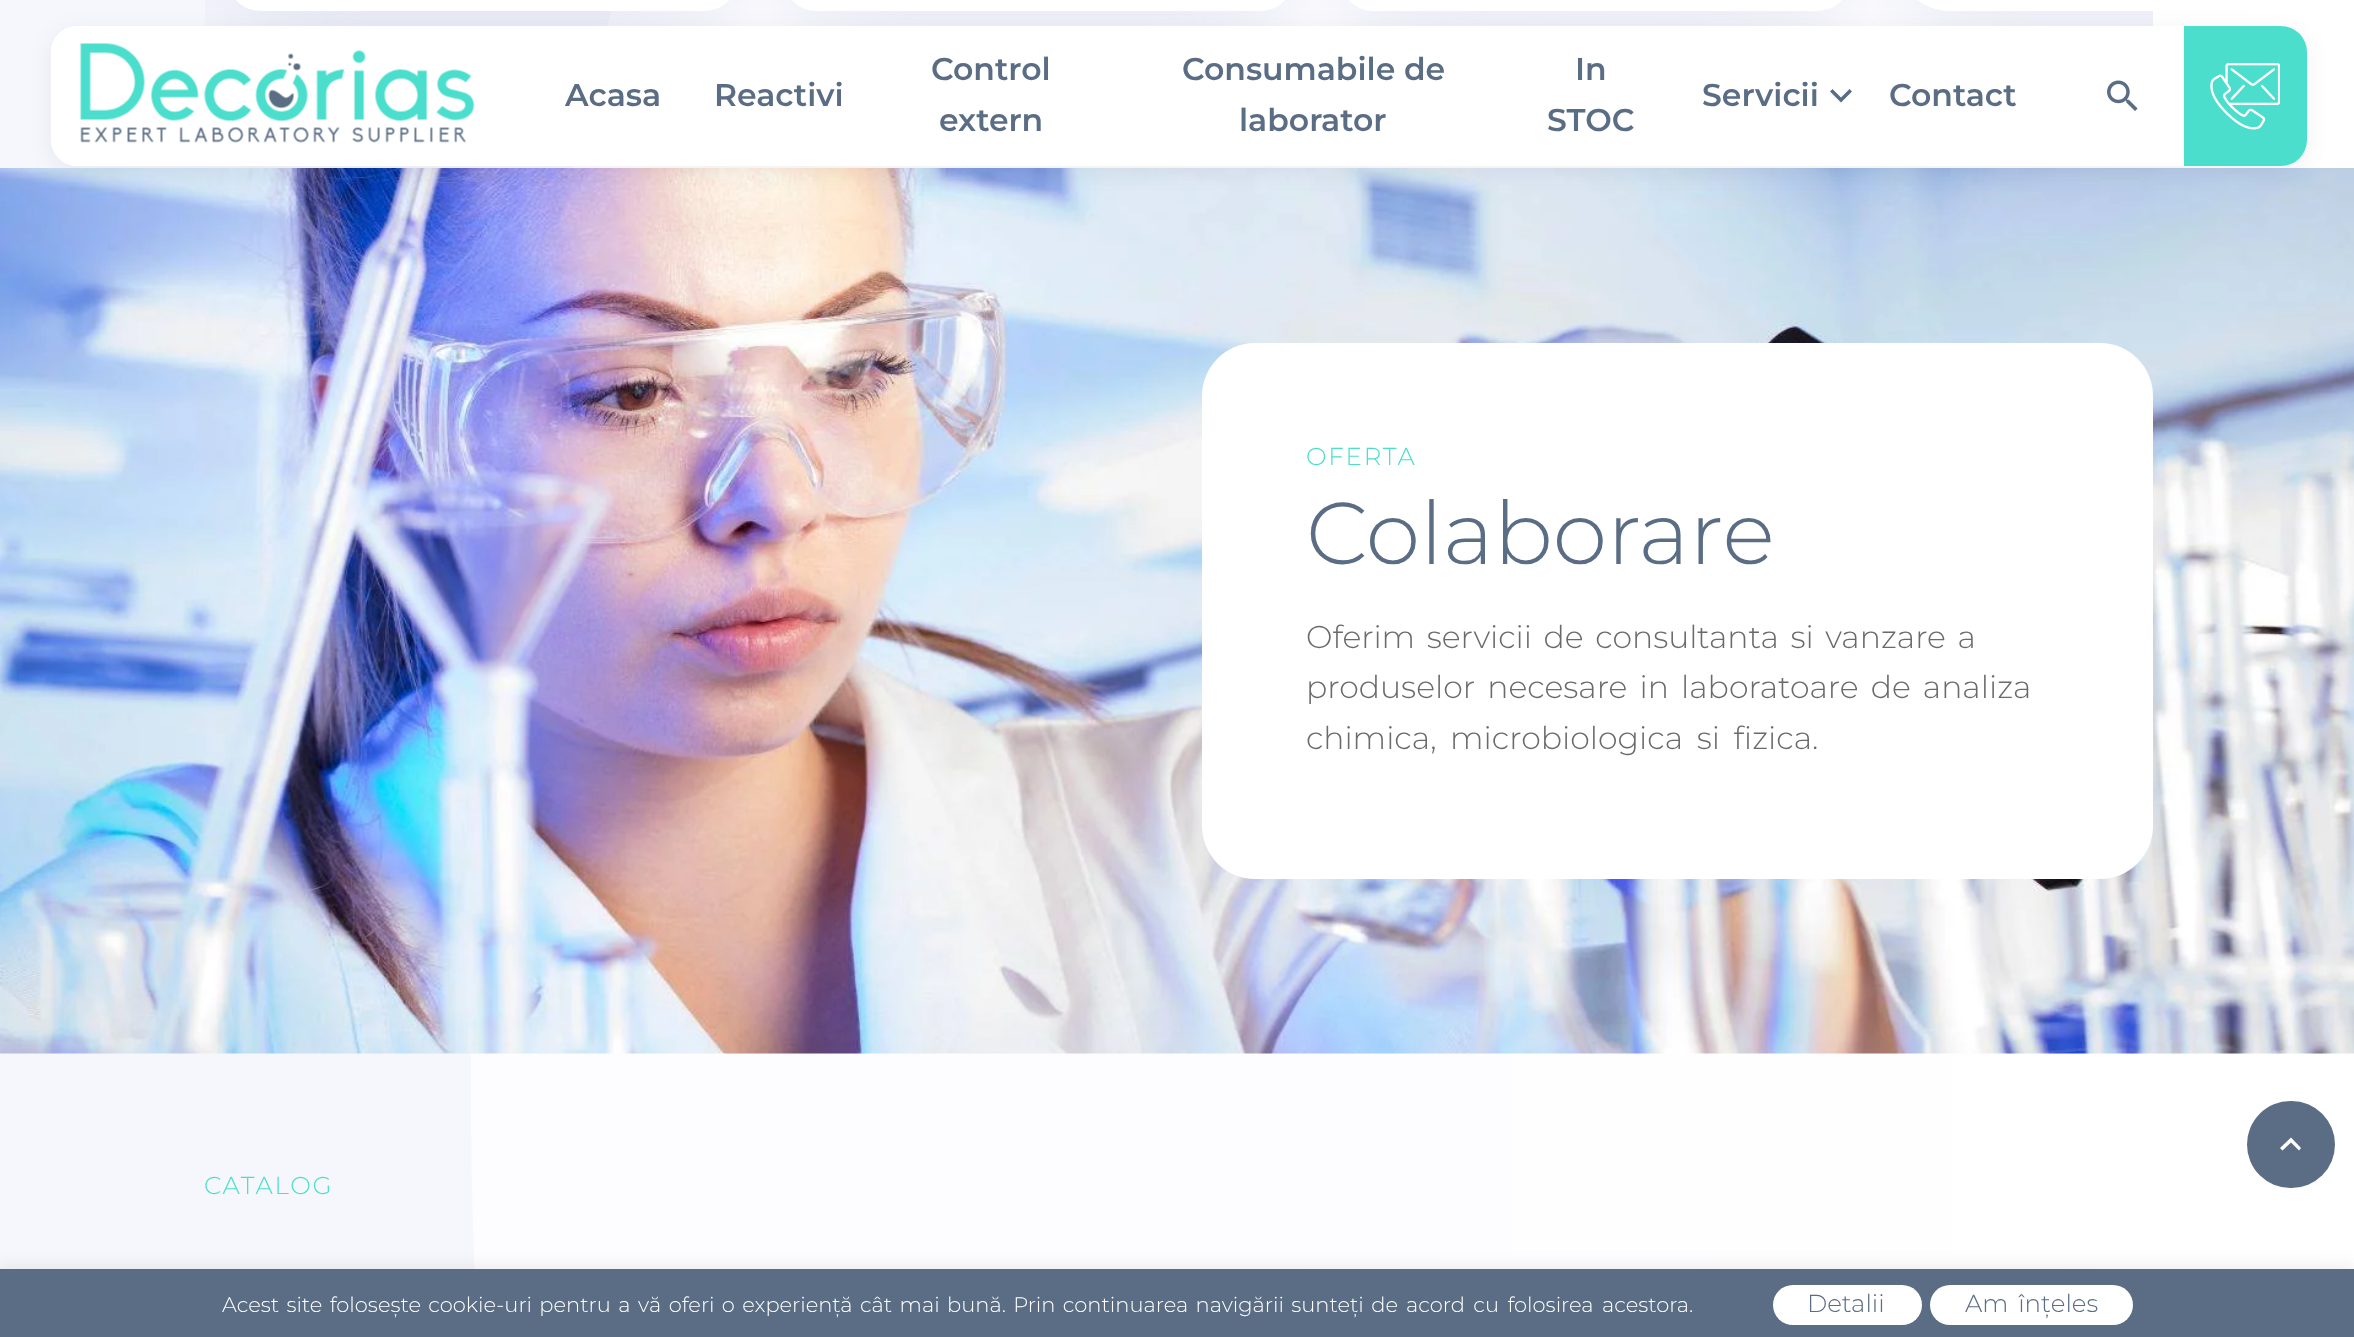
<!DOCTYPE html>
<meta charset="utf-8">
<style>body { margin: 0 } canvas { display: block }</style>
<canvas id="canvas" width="2354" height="1337"></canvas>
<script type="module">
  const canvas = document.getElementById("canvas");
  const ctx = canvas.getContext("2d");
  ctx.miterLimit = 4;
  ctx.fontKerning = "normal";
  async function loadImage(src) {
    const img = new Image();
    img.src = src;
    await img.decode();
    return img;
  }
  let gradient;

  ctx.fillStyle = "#f6f7fc";
  ctx.fillRect(0, 0, 2354, 1337);
  gradient = ctx.createLinearGradient(0, 1096, 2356, 1096);
  gradient.addColorStop(0.5, "#fdfdff");
  gradient.addColorStop(1, "#ffffff");
  ctx.fillStyle = gradient;
  ctx.beginPath();
  ctx.moveTo(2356, -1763);
  ctx.lineTo(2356, 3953);
  ctx.bezierCurveTo(1315, 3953, 471, 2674, 471, 1095);
  ctx.bezierCurveTo(471, -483, 1315, -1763, 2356, -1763);
  ctx.closePath();
  ctx.fill();
  ctx.save();
  ctx.beginPath();
  ctx.rect(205, 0, 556, 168);
  ctx.clip();
  ctx.fillStyle = "rgba(175, 180, 217, 0.24)";
  ctx.filter = "blur(52.5px)";
  ctx.beginPath();
  ctx.roundRect(228, -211, 509, 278, 53);
  ctx.fill();
  ctx.filter = "none";
  ctx.restore();
  ctx.fillStyle = "#ffffff";
  ctx.beginPath();
  ctx.roundRect(228, -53, 509, 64, 53);
  ctx.fill();
  ctx.save();
  ctx.beginPath();
  ctx.rect(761, 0, 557, 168);
  ctx.clip();
  ctx.fillStyle = "rgba(175, 180, 217, 0.24)";
  ctx.filter = "blur(52.5px)";
  ctx.beginPath();
  ctx.roundRect(784, -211, 509, 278, 53);
  ctx.fill();
  ctx.filter = "none";
  ctx.restore();
  ctx.beginPath();
  ctx.roundRect(784, -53, 509, 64, 53);
  ctx.fill();
  ctx.save();
  ctx.beginPath();
  ctx.rect(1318, 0, 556, 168);
  ctx.clip();
  ctx.fillStyle = "rgba(175, 180, 217, 0.24)";
  ctx.filter = "blur(52.5px)";
  ctx.beginPath();
  ctx.roundRect(1341, -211, 509, 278, 53);
  ctx.fill();
  ctx.filter = "none";
  ctx.restore();
  ctx.beginPath();
  ctx.roundRect(1341, -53, 509, 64, 53);
  ctx.fill();
  ctx.save();
  ctx.beginPath();
  ctx.rect(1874, 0, 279, 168);
  ctx.clip();
  ctx.fillStyle = "rgba(175, 180, 217, 0.24)";
  ctx.filter = "blur(52.5px)";
  ctx.beginPath();
  ctx.roundRect(1897, -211, 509, 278, 53);
  ctx.fill();
  ctx.filter = "none";
  ctx.restore();
  ctx.beginPath();
  ctx.moveTo(1950, -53);
  ctx.lineTo(2153, -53);
  ctx.lineTo(2153, 11);
  ctx.lineTo(1950, 11);
  ctx.bezierCurveTo(1920.5, 11, 1897, -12.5, 1897, -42);
  ctx.lineTo(1897, 0);
  ctx.bezierCurveTo(1897, -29.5, 1920.5, -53, 1950, -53);
  ctx.closePath();
  ctx.fill();
  ctx.drawImage(await loadImage("img4.png"), 0, 168, 2354, 886);
  ctx.fillStyle = "rgba(0, 0, 0, 0.05)";
  ctx.filter = "blur(10.5px)";
  ctx.beginPath();
  ctx.roundRect(49, 30, 2259, 143, 28);
  ctx.fill();
  ctx.filter = "none";
  ctx.fillStyle = "#ffffff";
  ctx.beginPath();
  ctx.roundRect(51, 26, 2256, 140, 26);
  ctx.fill();
  ctx.beginPath();
  ctx.roundRect(51, 26, 462, 140, [26, 0, 0, 26]);
  ctx.fill();
  ctx.drawImage(await loadImage("img1.png"), 80, 43, 395, 100);
  ctx.font = "600 31.5px Montserrat";
  ctx.fillStyle = "#5a6d84";
  ctx.fillText("Acasa", 565, 106);
  ctx.fillText("Reactivi", 714, 106);
  ctx.fillText("Control", 931, 80);
  ctx.fillText("extern", 939, 131);
  ctx.fillText("Consumabile de", 1182, 80);
  ctx.fillText("laborator", 1239, 131);
  ctx.fillText("In", 1575, 80);
  ctx.fillText("STOC", 1547, 131);
  ctx.fillText("Servicii", 1702, 106);
  ctx.beginPath();
  ctx.moveTo(1849.5, 89);
  ctx.lineTo(1852, 91.5);
  ctx.lineTo(1841, 102.5);
  ctx.lineTo(1830, 91.5);
  ctx.lineTo(1832.5, 89);
  ctx.lineTo(1841, 97.5);
  ctx.closePath();
  ctx.fill();
  ctx.fillText("Contact", 1889, 106);
  ctx.drawImage(await loadImage("img2.png"), 2107, 80, 31, 31);
  ctx.fillStyle = "#4bdecc";
  ctx.beginPath();
  ctx.roundRect(2184, 26, 123, 140, [0, 26, 26, 0]);
  ctx.fill();
  ctx.drawImage(await loadImage("img3.png"), 2210, 63, 70, 67);
  ctx.fillStyle = "#ffffff";
  ctx.beginPath();
  ctx.roundRect(1202, 343, 951, 536, 53);
  ctx.fill();
  ctx.letterSpacing = "1.75px";
  ctx.font = "300 24.5px Montserrat";
  ctx.fillStyle = "#4bdecc";
  ctx.fillText("OFERTA", 1306, 465);
  ctx.letterSpacing = "0px";
  ctx.font = "300 87.5px Montserrat";
  ctx.fillStyle = "#5a6d84";
  ctx.fillText("Colaborare", 1306, 564);
  ctx.wordSpacing = "3.5px";
  ctx.font = "300 31.5px Montserrat";
  ctx.fillStyle = "#6a6a6a";
  ctx.fillText("Oferim servicii de consultanta si vanzare a", 1306, 648);
  ctx.wordSpacing = "4px";
  ctx.fillText("produselor necesare in laboratoare de analiza", 1306, 698);
  ctx.wordSpacing = "5.5px";
  ctx.fillText("chimica, microbiologica si fizica.", 1306, 749);
  ctx.letterSpacing = "1.75px";
  ctx.wordSpacing = "0px";
  ctx.font = "300 24.5px Montserrat";
  ctx.fillStyle = "#4bdecc";
  ctx.fillText("CATALOG", 204, 1194);
  ctx.fillStyle = "#5a6d84";
  ctx.beginPath();
  ctx.roundRect(2247, 1101, 88, 87, 43.5);
  ctx.fill();
  ctx.fillStyle = "#ffffff";
  ctx.beginPath();
  ctx.moveTo(2291, 1137.5);
  ctx.lineTo(2280, 1148);
  ctx.lineTo(2282.5, 1150.5);
  ctx.lineTo(2291, 1142.5);
  ctx.lineTo(2299, 1150.5);
  ctx.lineTo(2301, 1148);
  ctx.closePath();
  ctx.fill();
  ctx.fillStyle = "rgba(0, 0, 0, 0.08)";
  ctx.filter = "blur(9px)";
  ctx.beginPath();
  ctx.rect(-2, 1267, 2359, 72);
  ctx.fill();
  ctx.filter = "none";
  ctx.fillStyle = "#5a6d84";
  ctx.fillRect(0, 1269, 2354, 68);
  ctx.letterSpacing = "0px";
  ctx.wordSpacing = "2px";
  ctx.font = "300 21px Montserrat";
  ctx.fillStyle = "#ffffff";
  ctx.fillText("Acest site folosește cookie-uri pentru a vă oferi o experiență cât mai bună. Prin continuarea navigării sunteți de", 222, 1312);
  ctx.wordSpacing = "3px";
  ctx.fillText("acord cu folosirea acestora.", 1406, 1312);
  ctx.beginPath();
  ctx.roundRect(1773, 1285, 149, 40, 20);
  ctx.fill();
  ctx.wordSpacing = "0px";
  ctx.font = "300 24.5px Montserrat";
  ctx.fillStyle = "#5a6d84";
  ctx.fillText("Detalii", 1807, 1312);
  ctx.fillStyle = "#ffffff";
  ctx.beginPath();
  ctx.roundRect(1930, 1285, 203, 40, 20);
  ctx.fill();
  ctx.wordSpacing = "3.5px";
  ctx.fillStyle = "#5a6d84";
  ctx.fillText("Am înțeles", 1965, 1312);
</script>
